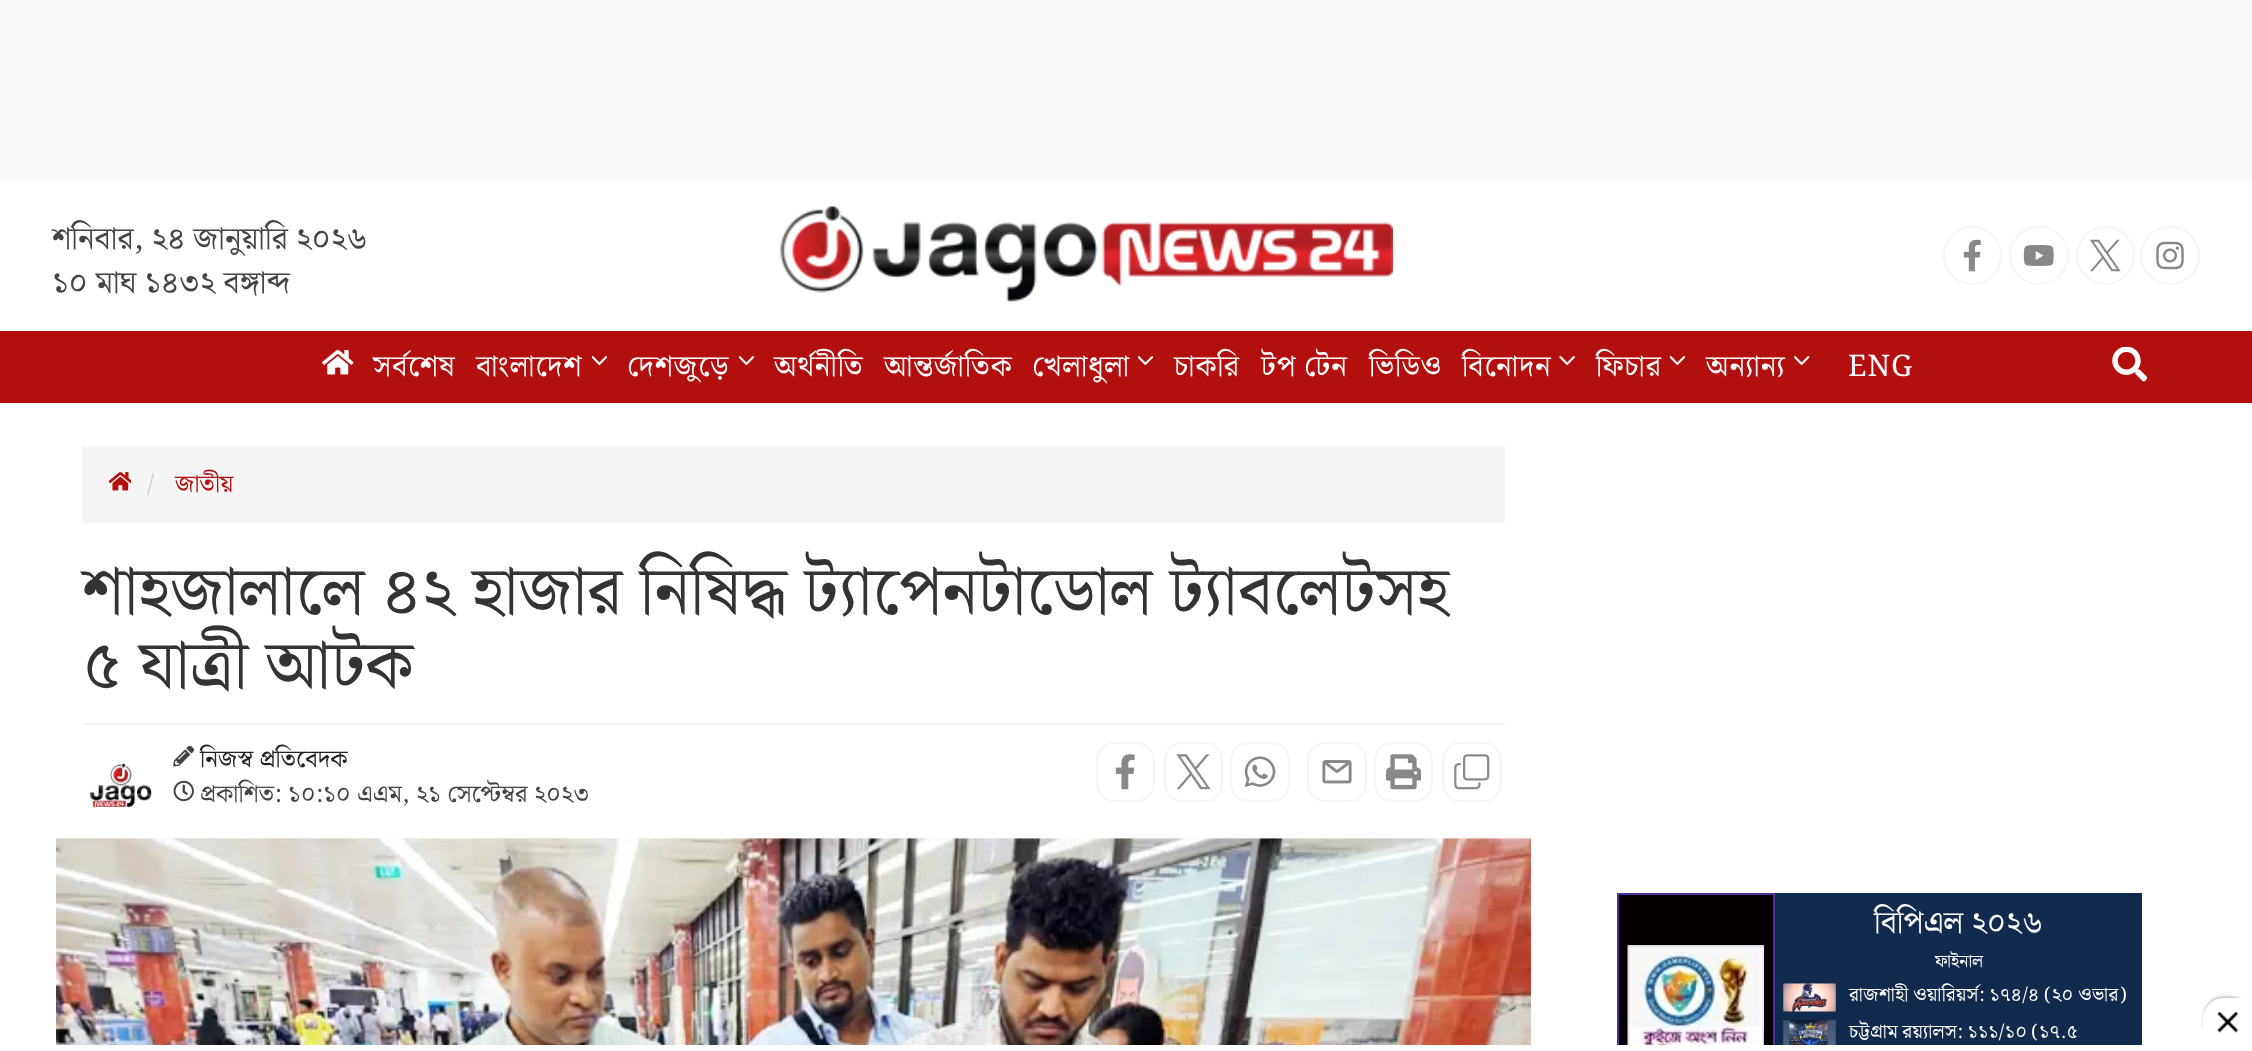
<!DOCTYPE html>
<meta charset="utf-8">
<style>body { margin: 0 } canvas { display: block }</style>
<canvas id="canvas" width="2252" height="1051"></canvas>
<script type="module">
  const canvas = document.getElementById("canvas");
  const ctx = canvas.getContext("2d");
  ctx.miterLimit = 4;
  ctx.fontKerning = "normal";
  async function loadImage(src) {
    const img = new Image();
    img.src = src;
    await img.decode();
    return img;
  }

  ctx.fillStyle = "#ffffff";
  ctx.fillRect(0, 0, 2252, 1051);
  ctx.fillStyle = "#fafafa";
  ctx.fillRect(0, 0, 2252, 182);
  ctx.font = "31.5px Noto Serif Bengali";
  ctx.fillStyle = "#444444";
  ctx.fillText("শনিবার, ২৪ জানুয়ারি ২০২৬", 52, 249);
  ctx.fillText("১০ মাঘ ১৪৩২ বঙ্গাব্দ", 52, 293);
  ctx.drawImage(await loadImage("img1.png"), 780, 206, 613, 96);
  ctx.beginPath();
  ctx.arc(1972.5, 255.5, 28.5, 0, Math.PI * 2);
  ctx.strokeStyle = "#f5f5f5";
  ctx.lineWidth = 2;
  ctx.stroke();
  ctx.drawImage(await loadImage("img2.png"), 1963, 239, 18, 33);
  ctx.beginPath();
  ctx.roundRect(2010, 227, 58, 57, 28.5);
  ctx.stroke();
  ctx.drawImage(await loadImage("img3.png"), 2023, 245, 31, 21);
  ctx.beginPath();
  ctx.arc(2105.5, 255.5, 28.5, 0, Math.PI * 2);
  ctx.stroke();
  ctx.drawImage(await loadImage("img4.png"), 2090, 239, 31, 33);
  ctx.beginPath();
  ctx.roundRect(2141, 227, 58, 57, 28.5);
  ctx.stroke();
  ctx.drawImage(await loadImage("img5.png"), 2156, 241, 28, 29);
  ctx.fillStyle = "#b30f0f";
  ctx.fillRect(0, 331, 2252, 72);
  ctx.drawImage(await loadImage("img6.png"), 322, 350, 32, 25);
  ctx.letterSpacing = "0.9px";
  ctx.font = "29.75px Noto Serif Bengali";
  ctx.fillStyle = "#ffffff";
  ctx.fillText("সর্বশেষ", 373, 376);
  ctx.fillText("বাংলাদেশ", 476, 376);
  ctx.drawImage(await loadImage("img7.png"), 592, 356, 15, 9);
  ctx.fillText("দেশজুড়ে", 627, 376);
  ctx.drawImage(await loadImage("img7.png"), 739, 356, 15, 9);
  ctx.fillText("অর্থনীতি", 774, 376);
  ctx.fillText("আন্তর্জাতিক", 884, 376);
  ctx.fillText("খেলাধুলা", 1032, 376);
  ctx.drawImage(await loadImage("img7.png"), 1138, 356, 15, 9);
  ctx.fillText("চাকরি", 1174, 376);
  ctx.wordSpacing = "-1px";
  ctx.fillText("টপ টেন", 1261, 376);
  ctx.wordSpacing = "0px";
  ctx.fillText("ভিডিও", 1369, 376);
  ctx.fillText("বিনোদন", 1462, 376);
  ctx.drawImage(await loadImage("img8.png"), 1559, 356, 16, 9);
  ctx.fillText("ফিচার", 1596, 376);
  ctx.drawImage(await loadImage("img7.png"), 1670, 356, 15, 9);
  ctx.fillText("অন্যান্য", 1706, 376);
  ctx.drawImage(await loadImage("img9.png"), 1794, 356, 16, 9);
  ctx.fillText("ENG", 1848, 376);
  ctx.drawImage(await loadImage("img10.png"), 2112, 347, 35, 35);
  ctx.fillStyle = "#f5f5f5";
  ctx.fillRect(82, 446, 1423, 77);
  ctx.drawImage(await loadImage("img11.png"), 109, 472, 22, 19);
  ctx.letterSpacing = "0px";
  ctx.font = "24.5px Noto Serif Bengali";
  ctx.fillStyle = "#cccccc";
  ctx.fillText("/", 147, 492);
  ctx.fillStyle = "#b30f0f";
  ctx.fillText("জাতীয়", 175, 492);
  ctx.font = "68.25px Noto Serif Bengali";
  ctx.fillStyle = "#333333";
  ctx.fillText("শাহজালালে ৪২ হাজার নিষিদ্ধ ট্যাপেনটাডোল ট্যাবলেটসহ", 82, 614);
  ctx.fillText("৫ যাত্রী আটক", 82, 688);
  ctx.fillStyle = "#f3f3f3";
  ctx.fillRect(82, 723, 1423, 2);
  ctx.drawImage(await loadImage("img12.png"), 89, 763, 63, 45);
  ctx.drawImage(await loadImage("img13.png"), 173, 746, 21, 21);
  ctx.font = "24.5px Noto Serif Bengali";
  ctx.fillStyle = "#222222";
  ctx.fillText("নিজস্ব প্রতিবেদক", 200, 767);
  ctx.drawImage(await loadImage("img14.png"), 173, 781, 21, 21);
  ctx.fillStyle = "#444444";
  ctx.fillText("প্রকাশিত: ১০:১০ এএম, ২১ সেপ্টেম্বর ২০২৩", 200, 802);
  ctx.beginPath();
  ctx.roundRect(1097, 743, 57, 58, 17);
  ctx.stroke();
  ctx.drawImage(await loadImage("img15.png"), 1115, 754, 20, 36);
  ctx.beginPath();
  ctx.roundRect(1165, 743, 57, 58, 17);
  ctx.stroke();
  ctx.drawImage(await loadImage("img16.png"), 1176, 754, 35, 36);
  ctx.beginPath();
  ctx.roundRect(1231, 743, 58, 58, 17);
  ctx.stroke();
  ctx.drawImage(await loadImage("img17.png"), 1244, 756, 32, 31);
  ctx.beginPath();
  ctx.roundRect(1308, 743, 58, 58, 17);
  ctx.stroke();
  ctx.drawImage(await loadImage("img18.png"), 1322, 760, 30, 24);
  ctx.beginPath();
  ctx.roundRect(1375, 743, 57, 58, 17);
  ctx.stroke();
  ctx.drawImage(await loadImage("img19.png"), 1386, 754, 35, 36);
  ctx.beginPath();
  ctx.roundRect(1443, 743, 58, 58, 17);
  ctx.stroke();
  ctx.drawImage(await loadImage("img20.png"), 1454, 754, 36, 36);
  ctx.fillStyle = "#f5f5f5";
  ctx.fillRect(56, 838, 1475, 1);
  ctx.drawImage(await loadImage("img21.png"), 56, 838, 1476, 207);
  ctx.fillStyle = "#040001";
  ctx.fillRect(1619, 895, 154, 150);
  ctx.strokeStyle = "#4e339d";
  ctx.strokeRect(1618, 894, 156, 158);
  ctx.drawImage(await loadImage("img22.png"), 1627, 945, 137, 100);
  ctx.fillStyle = "#112b4e";
  ctx.fillRect(1775, 893, 367, 152);
  ctx.font = "31.5px Noto Serif Bengali";
  ctx.fillStyle = "#ffffff";
  ctx.fillText("বিপিএল ২০২৬", 1874, 933);
  ctx.font = "17.5px Noto Serif Bengali";
  ctx.fillText("ফাইনাল", 1935, 967);
  ctx.drawImage(await loadImage("img23.png"), 1783, 983, 53, 29);
  ctx.letterSpacing = "0.35px";
  ctx.wordSpacing = "-0.5px";
  ctx.font = "19.25px Noto Serif Bengali";
  ctx.fillText("রাজশাহী ওয়ারিয়র্স: ১৭৪/৪ (২০ ওভার)", 1849, 1001);
  ctx.drawImage(await loadImage("img24.png"), 1783, 1020, 53, 25);
  ctx.wordSpacing = "-1px";
  ctx.fillText("চট্টগ্রাম রয়্যালস: ১১১/১০ (১৭.৫", 1849, 1038);
  ctx.fillRect(1617, 1045, 158, 6);
  ctx.fillStyle = "rgba(0, 0, 0, 0.2)";
  ctx.filter = "blur(1px)";
  ctx.beginPath();
  ctx.roundRect(2203, 996, 49, 49, 21);
  ctx.fill();
  ctx.filter = "none";
  ctx.fillStyle = "#ffffff";
  ctx.beginPath();
  ctx.roundRect(2203, 998, 49, 49, [21, 0, 0, 0]);
  ctx.fill();
  ctx.drawImage(await loadImage("img25.png"), 2217, 1011, 22, 22);
</script>
